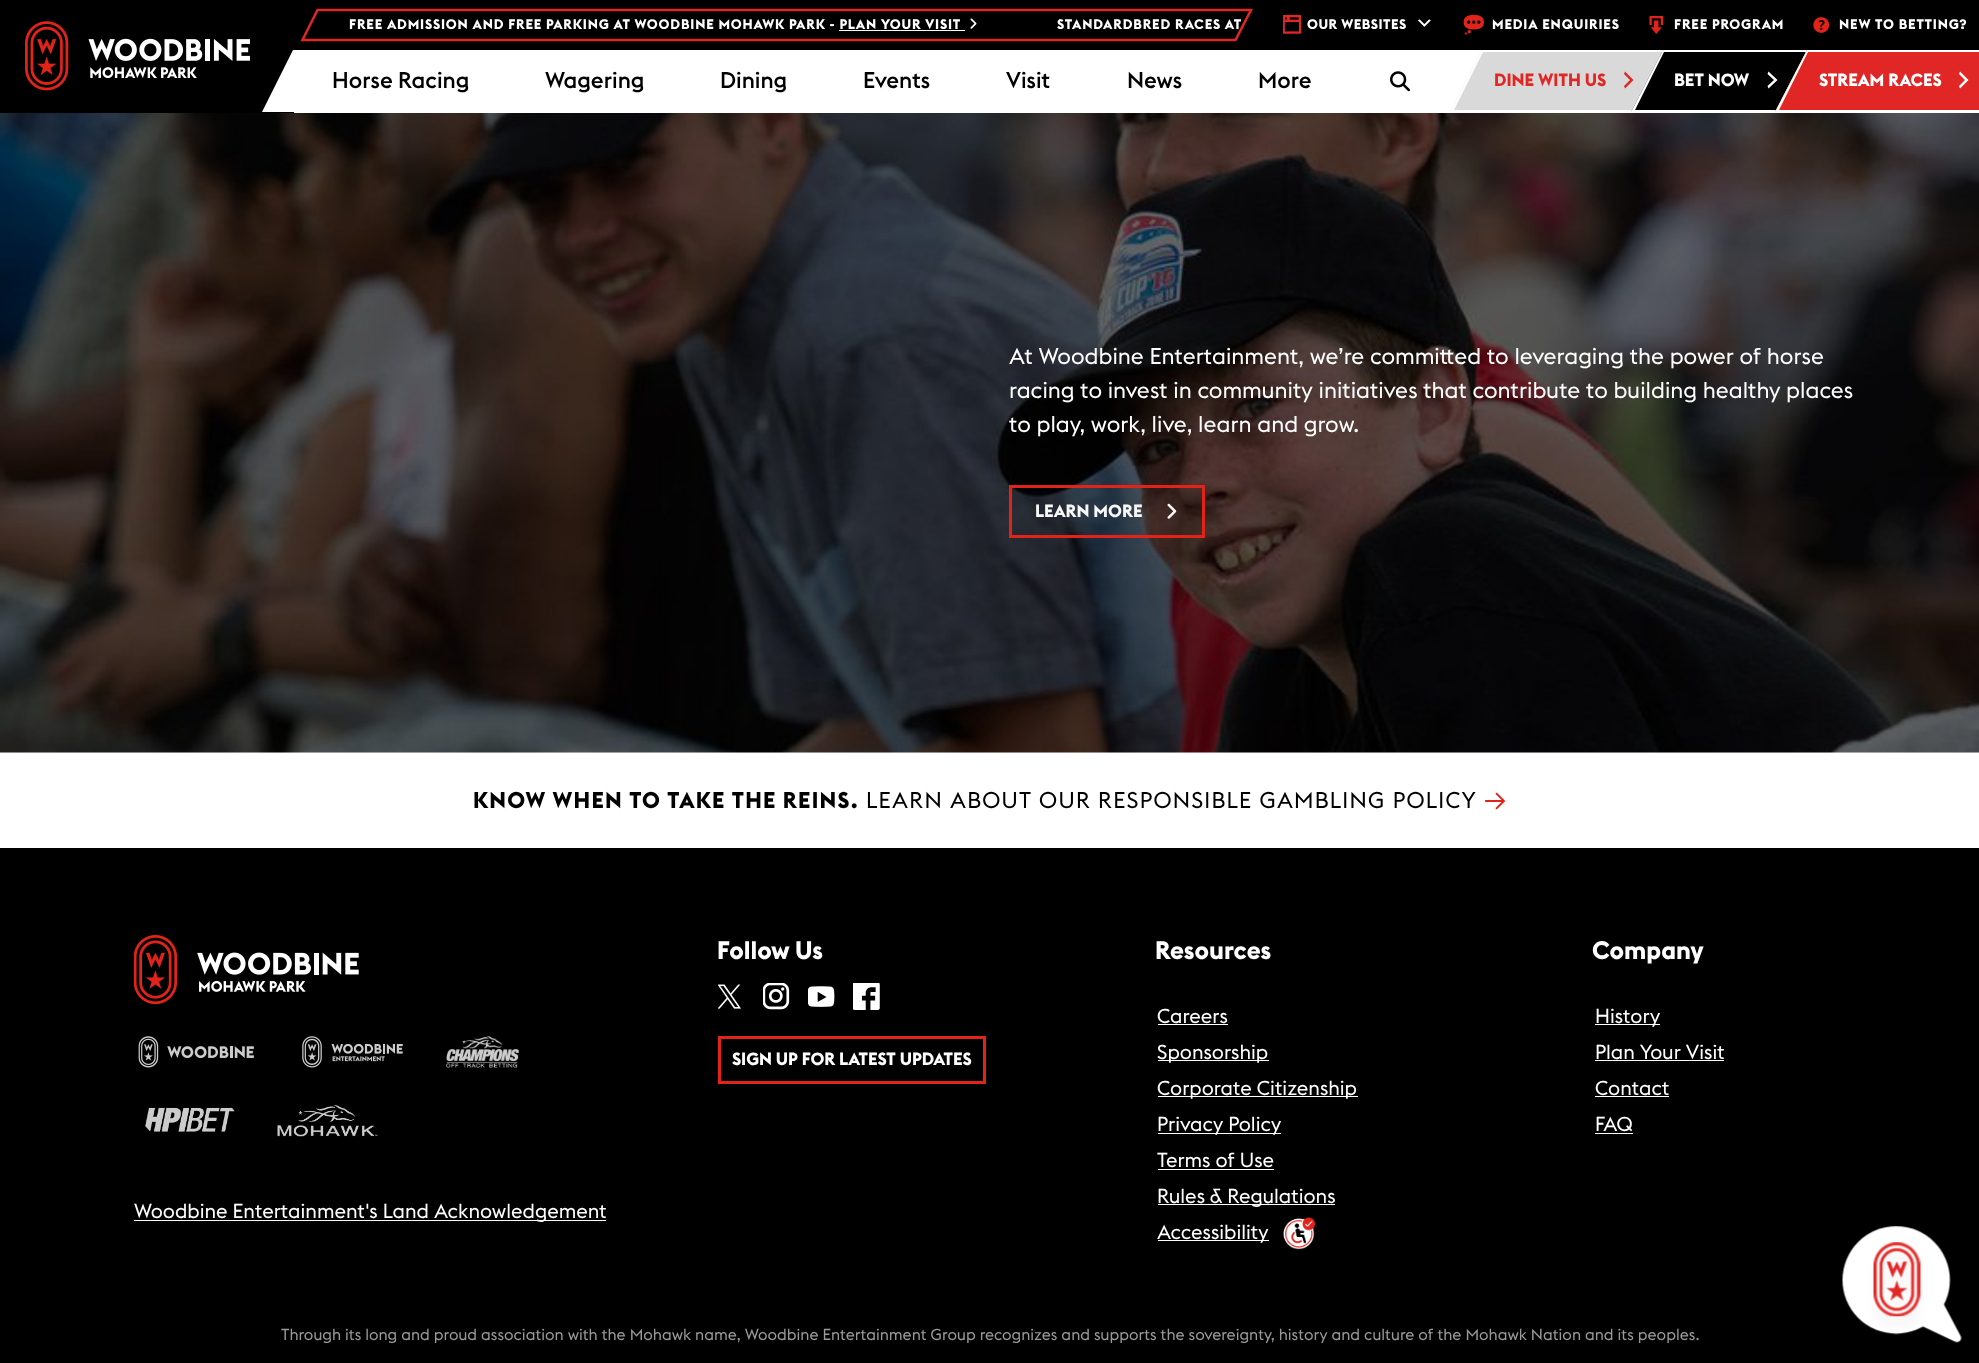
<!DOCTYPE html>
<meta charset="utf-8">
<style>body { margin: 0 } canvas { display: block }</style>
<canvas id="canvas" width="1979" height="1363"></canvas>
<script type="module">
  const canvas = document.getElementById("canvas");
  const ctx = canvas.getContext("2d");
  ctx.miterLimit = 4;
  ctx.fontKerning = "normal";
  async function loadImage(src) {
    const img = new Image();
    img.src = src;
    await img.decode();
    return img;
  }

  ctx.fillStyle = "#f7f7f7";
  ctx.fillRect(0, 0, 1979, 1363);
  ctx.fillStyle = "#000000";
  ctx.fillRect(0, 0, 1979, 113);
  ctx.drawImage(await loadImage("img1.png"), 25, 21, 225, 70);
  ctx.beginPath();
  ctx.moveTo(317.5, 10);
  ctx.lineTo(1251, 10);
  ctx.lineTo(1235.5, 40);
  ctx.lineTo(302.5, 40);
  ctx.closePath();
  ctx.strokeStyle = "#e12726";
  ctx.lineWidth = 2.5;
  ctx.stroke();
  ctx.drawImage(await loadImage("img2.png"), 970, 18, 7, 11);
  ctx.fillStyle = "#ffffff";
  ctx.fillRect(839, 30, 126, 1);
  ctx.letterSpacing = "0.83px";
  ctx.font = "bold 13.75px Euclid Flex";
  ctx.fillText("FREE ADMISSION AND FREE PARKING AT WOODBINE MOHAWK PARK - PLAN YOUR VISIT", 349, 29);
  ctx.fillText("STANDARDBRED RACES AT", 1057, 29);
  ctx.drawImage(await loadImage("img3.png"), 1283, 15, 18, 19);
  ctx.letterSpacing = "0.5px";
  ctx.fillText("OUR WEBSITES", 1307, 29);
  ctx.drawImage(await loadImage("img4.png"), 1417, 19, 14, 8);
  ctx.drawImage(await loadImage("img5.png"), 1463, 14, 21, 21);
  ctx.letterSpacing = "0.83px";
  ctx.fillText("MEDIA ENQUIRIES", 1492, 29);
  ctx.drawImage(await loadImage("img6.png"), 1649, 16, 14, 18);
  ctx.fillText("FREE PROGRAM", 1674, 29);
  ctx.drawImage(await loadImage("img7.png"), 1813, 17, 17, 16);
  ctx.fillText("NEW TO BETTING?", 1839, 29);
  ctx.fillRect(294, 50, 1685, 63);
  ctx.beginPath();
  ctx.moveTo(293, 50);
  ctx.lineTo(356, 50);
  ctx.lineTo(324, 112);
  ctx.lineTo(262, 112);
  ctx.closePath();
  ctx.fill();
  ctx.letterSpacing = "0px";
  ctx.font = "500 22.5px Euclid Flex";
  ctx.fillStyle = "#000000";
  ctx.fillText("Horse Racing", 332, 88);
  ctx.fillText("Wagering", 545, 88);
  ctx.fillText("Dining", 720, 88);
  ctx.fillText("Events", 863, 88);
  ctx.fillText("Visit", 1006, 88);
  ctx.fillText("News", 1127, 88);
  ctx.fillText("More", 1258, 88);
  ctx.drawImage(await loadImage("img8.png"), 1390, 71, 20, 21);
  ctx.fillStyle = "#d9d9d9";
  ctx.beginPath();
  ctx.moveTo(1482, 50);
  ctx.lineTo(1663, 50);
  ctx.lineTo(1631, 112);
  ctx.lineTo(1450, 112);
  ctx.closePath();
  ctx.fill();
  ctx.fillStyle = "#ffffff";
  ctx.beginPath();
  ctx.moveTo(1482, 50);
  ctx.lineTo(1663, 50);
  ctx.lineTo(1662, 52);
  ctx.lineTo(1481, 52);
  ctx.closePath();
  ctx.fill();
  ctx.beginPath();
  ctx.moveTo(1451, 110);
  ctx.lineTo(1632, 110);
  ctx.lineTo(1631, 112);
  ctx.lineTo(1450, 112);
  ctx.closePath();
  ctx.fill();
  ctx.beginPath();
  ctx.moveTo(1482, 50);
  ctx.lineTo(1484, 50);
  ctx.lineTo(1453, 112);
  ctx.lineTo(1450, 112);
  ctx.closePath();
  ctx.fill();
  ctx.font = "bold 17.5px Euclid Flex";
  ctx.fillStyle = "#e12726";
  ctx.fillText("DINE WITH US", 1494, 86);
  ctx.beginPath();
  ctx.moveTo(1624, 86);
  ctx.lineTo(1630, 80);
  ctx.lineTo(1624, 74);
  ctx.lineTo(1625, 71.5);
  ctx.lineTo(1633.5, 80);
  ctx.lineTo(1625, 88.5);
  ctx.closePath();
  ctx.fill();
  ctx.fillStyle = "#000000";
  ctx.beginPath();
  ctx.moveTo(1663, 50);
  ctx.lineTo(1807, 50);
  ctx.lineTo(1775, 112);
  ctx.lineTo(1631, 112);
  ctx.closePath();
  ctx.fill();
  ctx.fillStyle = "#ffffff";
  ctx.beginPath();
  ctx.moveTo(1663, 50);
  ctx.lineTo(1807, 50);
  ctx.lineTo(1806, 52);
  ctx.lineTo(1662, 52);
  ctx.closePath();
  ctx.fill();
  ctx.beginPath();
  ctx.moveTo(1632, 110);
  ctx.lineTo(1776, 110);
  ctx.lineTo(1775, 112);
  ctx.lineTo(1631, 112);
  ctx.closePath();
  ctx.fill();
  ctx.beginPath();
  ctx.moveTo(1663, 50);
  ctx.lineTo(1665, 50);
  ctx.lineTo(1634, 112);
  ctx.lineTo(1631, 112);
  ctx.closePath();
  ctx.fill();
  ctx.fillText("BET NOW", 1674, 86);
  ctx.beginPath();
  ctx.moveTo(1767.5, 86);
  ctx.lineTo(1774, 80);
  ctx.lineTo(1767.5, 74);
  ctx.lineTo(1768.5, 71.5);
  ctx.lineTo(1777.5, 80);
  ctx.lineTo(1768.5, 88.5);
  ctx.closePath();
  ctx.fill();
  ctx.fillStyle = "#e12726";
  ctx.beginPath();
  ctx.moveTo(1807, 50);
  ctx.lineTo(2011, 50);
  ctx.lineTo(1979, 112);
  ctx.lineTo(1775, 112);
  ctx.closePath();
  ctx.fill();
  ctx.fillStyle = "#ffffff";
  ctx.beginPath();
  ctx.moveTo(1807, 50);
  ctx.lineTo(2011, 50);
  ctx.lineTo(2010, 52);
  ctx.lineTo(1806, 52);
  ctx.closePath();
  ctx.fill();
  ctx.beginPath();
  ctx.moveTo(1776, 110);
  ctx.lineTo(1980, 110);
  ctx.lineTo(1979, 112);
  ctx.lineTo(1775, 112);
  ctx.closePath();
  ctx.fill();
  ctx.beginPath();
  ctx.moveTo(1807, 50);
  ctx.lineTo(1809, 50);
  ctx.lineTo(1778, 112);
  ctx.lineTo(1775, 112);
  ctx.closePath();
  ctx.fill();
  ctx.fillText("STREAM RACES", 1819, 86);
  ctx.beginPath();
  ctx.moveTo(1959, 86);
  ctx.lineTo(1965, 80);
  ctx.lineTo(1959, 74);
  ctx.lineTo(1960, 71.5);
  ctx.lineTo(1968.5, 80);
  ctx.lineTo(1960, 88.5);
  ctx.closePath();
  ctx.fill();
  ctx.drawImage(await loadImage("img9.png"), 0, 113, 1979, 640);
  ctx.font = "22.5px Euclid Flex";
  ctx.fillText("At Woodbine Entertainment, we’re committed to leveraging the power of horse", 1009, 364);
  ctx.fillText("racing to invest in community initiatives that contribute to building healthy places", 1009, 398);
  ctx.fillText("to play, work, live, learn and grow.", 1009, 432);
  ctx.strokeStyle = "#e2231a";
  ctx.lineWidth = 3;
  ctx.strokeRect(1010.5, 486.5, 193, 50);
  ctx.font = "bold 17.5px Euclid Flex";
  ctx.fillStyle = "#f7f7f7";
  ctx.fillText("LEARN MORE", 1035, 517);
  ctx.drawImage(await loadImage("img10.png"), 1167, 503, 10, 16);
  ctx.fillStyle = "#ffffff";
  ctx.fillRect(0, 753, 1979, 95);
  ctx.letterSpacing = "1.25px";
  ctx.font = "bold 22.5px Euclid Flex";
  ctx.fillStyle = "#000000";
  ctx.fillText("KNOW WHEN TO TAKE THE REINS.", 473, 808);
  ctx.font = "22.5px Euclid Flex";
  ctx.fillText("LEARN ABOUT OUR RESPONSIBLE GAMBLING POLICY", 866, 808);
  ctx.font = "28px Euclid Flex";
  ctx.fillStyle = "#e2231a";
  ctx.fillText("→", 1484, 808);
  ctx.fillStyle = "#000000";
  ctx.fillRect(0, 848, 1979, 515);
  ctx.letterSpacing = "0px";
  ctx.font = "bold 25px Euclid Flex";
  ctx.fillStyle = "#ffffff";
  ctx.fillText("Follow Us", 717, 959);
  ctx.drawImage(await loadImage("img11.png"), 718, 984, 23, 25);
  ctx.drawImage(await loadImage("img12.png"), 763, 983, 27, 27);
  ctx.drawImage(await loadImage("img13.png"), 808, 986, 27, 21);
  ctx.drawImage(await loadImage("img14.png"), 853, 983, 27, 27);
  ctx.strokeRect(719.5, 1037.5, 265, 45);
  ctx.font = "bold 17.5px Euclid Flex";
  ctx.fillText("SIGN UP FOR LATEST UPDATES", 732, 1065);
  ctx.font = "bold 25px Euclid Flex";
  ctx.fillText("Resources", 1155, 959);
  ctx.font = "20px Euclid Flex";
  ctx.fillText("Careers", 1157, 1023);
  ctx.fillRect(1158, 1024, 70, 1);
  ctx.fillRect(1158, 1060, 111, 1);
  ctx.fillText("Sponsorship", 1157, 1059);
  ctx.fillRect(1158, 1096, 200, 1);
  ctx.fillText("Corporate Citizenship", 1157, 1095);
  ctx.fillRect(1158, 1133, 123, 1);
  ctx.fillText("Privacy Policy", 1157, 1131);
  ctx.fillText("Terms of Use", 1157, 1167);
  ctx.fillRect(1158, 1169, 116, 1);
  ctx.fillRect(1158, 1204, 177, 1);
  ctx.fillText("Rules & Regulations", 1157, 1203);
  ctx.drawImage(await loadImage("img15.png"), 1283, 1217, 32, 33);
  ctx.fillRect(1158, 1240, 111, 1);
  ctx.fillText("Accessibility", 1157, 1239);
  ctx.font = "bold 25px Euclid Flex";
  ctx.fillText("Company", 1592, 959);
  ctx.fillRect(1595, 1024, 65, 1);
  ctx.font = "20px Euclid Flex";
  ctx.fillText("History", 1595, 1023);
  ctx.fillText("Plan Your Visit", 1595, 1059);
  ctx.fillRect(1595, 1060, 129, 1);
  ctx.fillText("Contact", 1595, 1095);
  ctx.fillRect(1595, 1096, 74, 1);
  ctx.fillText("FAQ", 1595, 1131);
  ctx.fillRect(1595, 1133, 38, 1);
  ctx.drawImage(await loadImage("img16.png"), 134, 935, 225, 70);
  ctx.drawImage(await loadImage("img17.png"), 138, 1036, 116, 32);
  ctx.drawImage(await loadImage("img18.png"), 302, 1036, 101, 32);
  ctx.drawImage(await loadImage("img19.png"), 446, 1036, 73, 32);
  ctx.drawImage(await loadImage("img20.png"), 145, 1107, 90, 25);
  ctx.drawImage(await loadImage("img21.png"), 277, 1105, 101, 32);
  ctx.fillRect(134, 1220, 472, 1);
  ctx.fillText("Woodbine Entertainment's Land Acknowledgement", 134, 1218);
  ctx.font = "15.75px Euclid Flex";
  ctx.fillStyle = "#999999";
  ctx.fillText("Through its long and proud association with the Mohawk name, Woodbine Entertainment Group recognizes and supports the sovereignty, history and culture of the Mohawk Nation and its peoples.", 281, 1340);
  ctx.drawImage(await loadImage("img22.png"), 1842, 1226, 120, 117);
</script>
